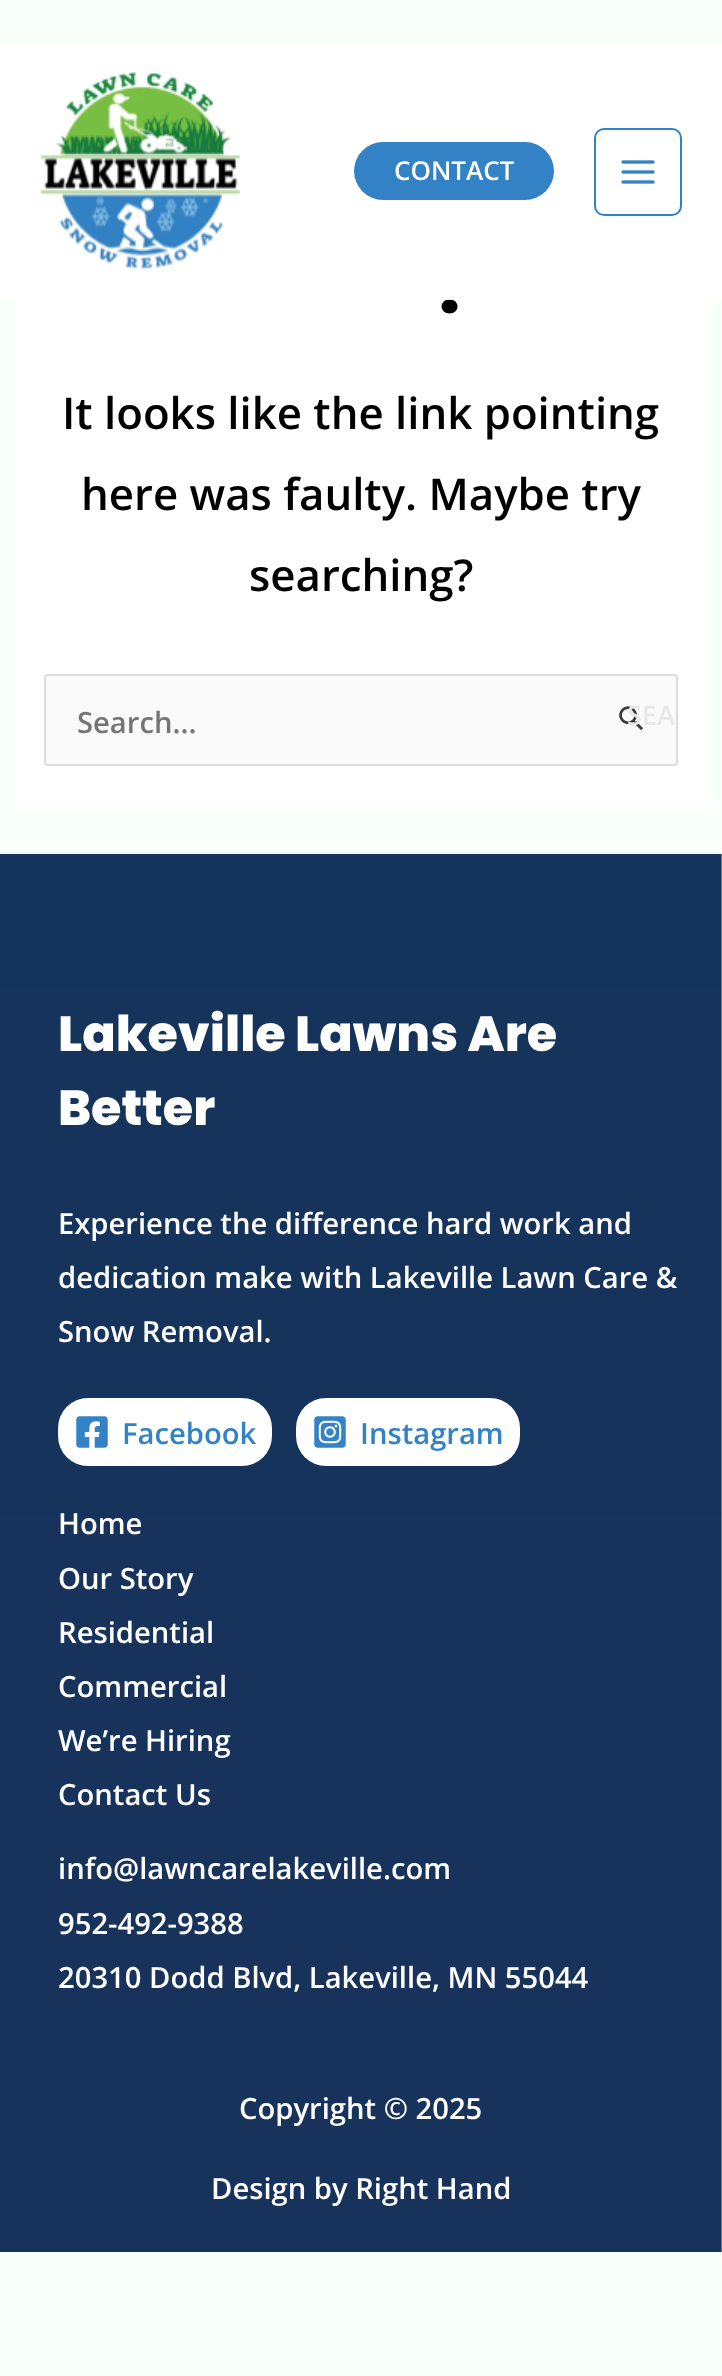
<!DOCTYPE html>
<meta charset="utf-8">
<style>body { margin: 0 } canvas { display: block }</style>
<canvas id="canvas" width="722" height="2376"></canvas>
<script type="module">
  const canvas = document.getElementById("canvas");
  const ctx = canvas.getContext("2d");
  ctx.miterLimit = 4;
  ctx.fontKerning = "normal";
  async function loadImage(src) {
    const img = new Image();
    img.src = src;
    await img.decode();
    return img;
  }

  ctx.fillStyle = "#f9fff9";
  ctx.fillRect(0, 0, 722, 2376);
  ctx.fillStyle = "#ffffff";
  ctx.fillRect(16, 44, 690, 766);
  ctx.font = "800 70px Poppins";
  ctx.fillStyle = "#000000";
  ctx.fillText(".", 439, 313);
  ctx.fillStyle = "rgba(255, 255, 255, 0.85)";
  ctx.fillRect(0, 44, 722, 256);
  ctx.drawImage(await loadImage("img1.png"), 40, 72, 200, 198);
  ctx.fillStyle = "#3282c5";
  ctx.beginPath();
  ctx.roundRect(354, 142, 200, 58, 29);
  ctx.fill();
  ctx.font = "600 26px Open Sans";
  ctx.fillStyle = "#ffffff";
  ctx.fillText("CONTACT", 394, 180);
  ctx.beginPath();
  ctx.roundRect(595, 129, 86, 86, 9);
  ctx.strokeStyle = "#3282c5";
  ctx.lineWidth = 2;
  ctx.stroke();
  ctx.drawImage(await loadImage("img2.png"), 621, 160, 34, 24);
  ctx.font = "600 43.75px Open Sans";
  ctx.fillStyle = "#000000";
  ctx.fillText("It looks like the link pointing", 62, 429);
  ctx.fillText("here was faulty. Maybe try", 81, 510);
  ctx.fillText("searching?", 249, 591);
  ctx.fillStyle = "#fafafa";
  ctx.beginPath();
  ctx.roundRect(45, 675, 632, 90, 3);
  ctx.fill();
  ctx.strokeStyle = "#dddddd";
  ctx.stroke();
  ctx.font = "600 29.2px Open Sans";
  ctx.fillStyle = "#757575";
  ctx.fillText("Search...", 77, 733);
  ctx.drawImage(await loadImage("img3.png"), 619, 706, 24, 25);
  ctx.font = "600 27px Open Sans";
  ctx.fillStyle = "#e8e8e8";
  ctx.fillText("SEA", 627, 725);
  ctx.drawImage(await loadImage("img4.png"), 0, 854, 722, 1398);
  ctx.font = "800 49.25px Poppins";
  ctx.fillStyle = "#ffffff";
  ctx.fillText("Lakeville Lawns Are", 58, 1051);
  ctx.fillText("Better", 58, 1125);
  ctx.font = "600 29.2px Open Sans";
  ctx.fillText("Experience the difference hard work and", 58, 1234);
  ctx.fillText("dedication make with Lakeville Lawn Care &", 58, 1288);
  ctx.fillText("Snow Removal.", 58, 1342);
  ctx.beginPath();
  ctx.roundRect(58, 1398, 214, 68, 30);
  ctx.fill();
  ctx.drawImage(await loadImage("img5.png"), 76, 1416, 32, 32);
  ctx.fillStyle = "#3282c5";
  ctx.fillText("Facebook", 122, 1444);
  ctx.fillStyle = "#ffffff";
  ctx.beginPath();
  ctx.roundRect(296, 1398, 224, 68, 30);
  ctx.fill();
  ctx.drawImage(await loadImage("img6.png"), 314, 1416, 32, 32);
  ctx.fillStyle = "#3282c5";
  ctx.fillText("Instagram", 360, 1444);
  ctx.fillStyle = "#ffffff";
  ctx.fillText("Home", 58, 1534);
  ctx.fillText("Our Story", 58, 1589);
  ctx.fillText("Residential", 58, 1643);
  ctx.fillText("Commercial", 58, 1697);
  ctx.fillText("We’re Hiring", 58, 1751);
  ctx.fillText("Contact Us", 58, 1805);
  ctx.fillText("info@lawncarelakeville.com", 58, 1879);
  ctx.fillText("952-492-9388", 58, 1934);
  ctx.fillText("20310 Dodd Blvd, Lakeville, MN 55044", 58, 1988);
  ctx.fillText("Copyright © 2025", 239, 2119);
  ctx.fillText("Design by Right Hand", 211, 2199);
</script>
